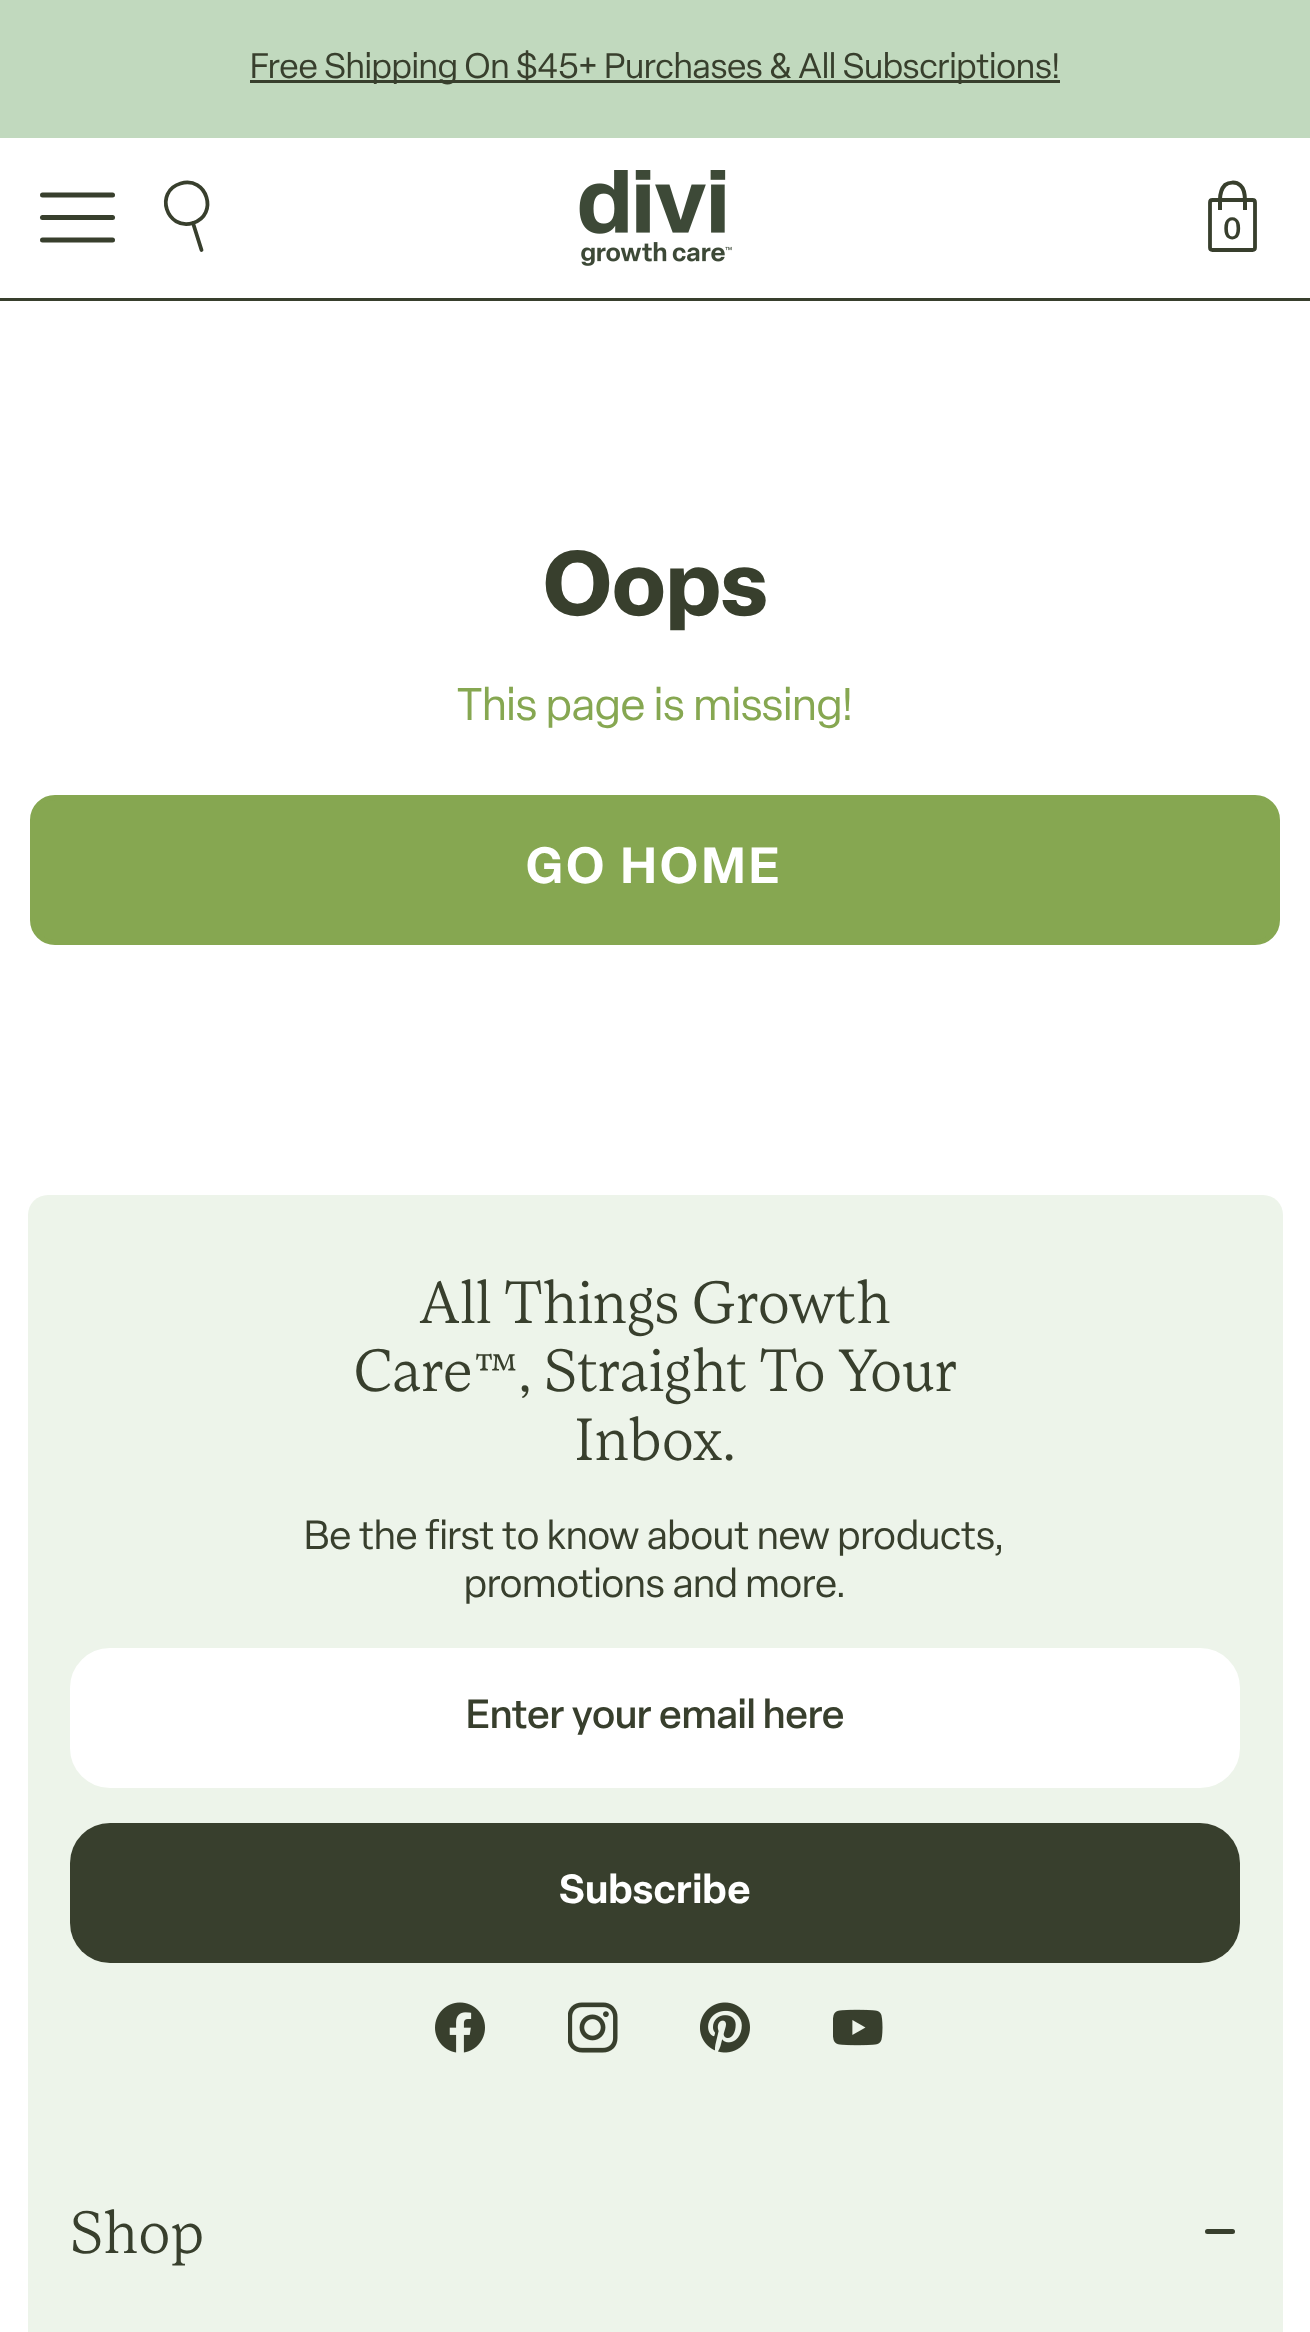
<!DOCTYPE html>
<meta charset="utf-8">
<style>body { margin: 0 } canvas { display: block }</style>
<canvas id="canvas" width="1310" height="2332"></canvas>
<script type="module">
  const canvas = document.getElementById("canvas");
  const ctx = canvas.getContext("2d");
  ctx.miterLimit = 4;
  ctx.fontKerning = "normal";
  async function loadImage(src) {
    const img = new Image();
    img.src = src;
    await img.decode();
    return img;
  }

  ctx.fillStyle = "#ffffff";
  ctx.fillRect(0, 0, 1310, 2332);
  ctx.fillStyle = "#c1d9be";
  ctx.fillRect(0, 0, 1310, 138);
  ctx.fillStyle = "#383f2d";
  ctx.fillRect(250, 80, 810, 3);
  ctx.font = "35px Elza";
  ctx.fillText("Free Shipping On $45+ Purchases & All Subscriptions!", 250, 78);
  ctx.fillRect(0, 298, 1310, 3);
  ctx.beginPath();
  ctx.moveTo(42.5, 195);
  ctx.lineTo(112.5, 195);
  ctx.strokeStyle = "#383f2d";
  ctx.lineWidth = 5;
  ctx.lineCap = "round";
  ctx.lineJoin = "round";
  ctx.stroke();
  ctx.beginPath();
  ctx.moveTo(42.5, 217.5);
  ctx.lineTo(112.5, 217.5);
  ctx.stroke();
  ctx.beginPath();
  ctx.moveTo(42.5, 240);
  ctx.lineTo(112.5, 240);
  ctx.stroke();
  ctx.beginPath();
  ctx.moveTo(193, 223);
  ctx.bezierCurveTo(219, 215, 207, 175.5, 180.5, 183.5);
  ctx.bezierCurveTo(154, 191.5, 166.5, 231, 193, 223);
  ctx.closePath();
  ctx.lineWidth = 3.8;
  ctx.lineCap = "butt";
  ctx.lineJoin = "miter";
  ctx.stroke();
  ctx.beginPath();
  ctx.moveTo(193, 223);
  ctx.lineTo(201.5, 250);
  ctx.lineCap = "round";
  ctx.stroke();
  ctx.drawImage(await loadImage("img1.png"), 579, 170, 153, 96);
  ctx.beginPath();
  ctx.moveTo(1252.5, 200);
  ctx.lineTo(1212.5, 200);
  ctx.bezierCurveTo(1211, 200, 1210, 201, 1210, 202.5);
  ctx.lineTo(1210, 247.5);
  ctx.bezierCurveTo(1210, 249, 1211, 250, 1212.5, 250);
  ctx.lineTo(1252.5, 250);
  ctx.bezierCurveTo(1254, 250, 1255, 249, 1255, 247.5);
  ctx.lineTo(1255, 202.5);
  ctx.bezierCurveTo(1255, 201, 1254, 200, 1252.5, 200);
  ctx.closePath();
  ctx.lineCap = "butt";
  ctx.stroke();
  ctx.beginPath();
  ctx.moveTo(1220, 210);
  ctx.lineTo(1220, 200);
  ctx.bezierCurveTo(1220, 194.5, 1221, 189, 1225, 185);
  ctx.bezierCurveTo(1228.5, 182.5, 1235.5, 181, 1240.5, 185.5);
  ctx.bezierCurveTo(1244.5, 189, 1245, 195, 1245, 201);
  ctx.lineTo(1245, 210);
  ctx.lineWidth = 4;
  ctx.stroke();
  ctx.font = "500 30px Elza";
  ctx.fillText("0", 1223, 239);
  ctx.font = "bold 90px Elza";
  ctx.fillText("Oops", 543, 615);
  ctx.font = "45px Elza";
  ctx.fillStyle = "#86a751";
  ctx.fillText("This page is missing!", 457, 720);
  ctx.beginPath();
  ctx.roundRect(32.5, 797.5, 1245, 145, 22.5);
  ctx.fill();
  ctx.strokeStyle = "#86a751";
  ctx.lineWidth = 5;
  ctx.stroke();
  ctx.letterSpacing = "3.75px";
  ctx.font = "600 50px Elza";
  ctx.fillStyle = "#ffffff";
  ctx.fillText("GO HOME", 526, 883);
  ctx.fillStyle = "#edf4ea";
  ctx.beginPath();
  ctx.roundRect(28, 1195, 1255, 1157, 20);
  ctx.fill();
  ctx.letterSpacing = "0px";
  ctx.font = "300 60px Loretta";
  ctx.fillStyle = "#383f2d";
  ctx.fillText("All Things Growth", 419, 1323);
  ctx.fillText("Care™, Straight To Your", 353, 1391);
  ctx.fillText("Inbox.", 574, 1460);
  ctx.font = "40px Elza";
  ctx.fillText("Be the first to know about new products,", 304, 1549);
  ctx.fillText("promotions and more.", 464, 1597);
  ctx.fillStyle = "#ffffff";
  ctx.beginPath();
  ctx.roundRect(71.5, 1649.5, 1167, 137, 38.5);
  ctx.fill();
  ctx.strokeStyle = "#ffffff";
  ctx.lineWidth = 3;
  ctx.stroke();
  ctx.font = "500 40px Elza";
  ctx.fillStyle = "#383f2d";
  ctx.fillText("Enter your email here", 466, 1728);
  ctx.beginPath();
  ctx.roundRect(70, 1823, 1170, 140, 40);
  ctx.fill();
  ctx.letterSpacing = "0.5px";
  ctx.font = "600 40px Elza";
  ctx.fillStyle = "#ffffff";
  ctx.fillText("Subscribe", 559, 1903);
  ctx.drawImage(await loadImage("img2.png"), 435, 2002, 50, 51);
  ctx.drawImage(await loadImage("img3.png"), 568, 2002, 50, 51);
  ctx.drawImage(await loadImage("img4.png"), 700, 2002, 50, 51);
  ctx.drawImage(await loadImage("img5.png"), 833, 2009, 50, 37);
  ctx.letterSpacing = "0px";
  ctx.font = "300 60px Loretta";
  ctx.fillStyle = "#383f2d";
  ctx.fillText("Shop", 70, 2253);
  ctx.beginPath();
  ctx.moveTo(1232.5, 2231.5);
  ctx.lineTo(1207.5, 2231.5);
  ctx.strokeStyle = "#383f2d";
  ctx.lineWidth = 5;
  ctx.lineCap = "round";
  ctx.lineJoin = "round";
  ctx.stroke();
</script>
